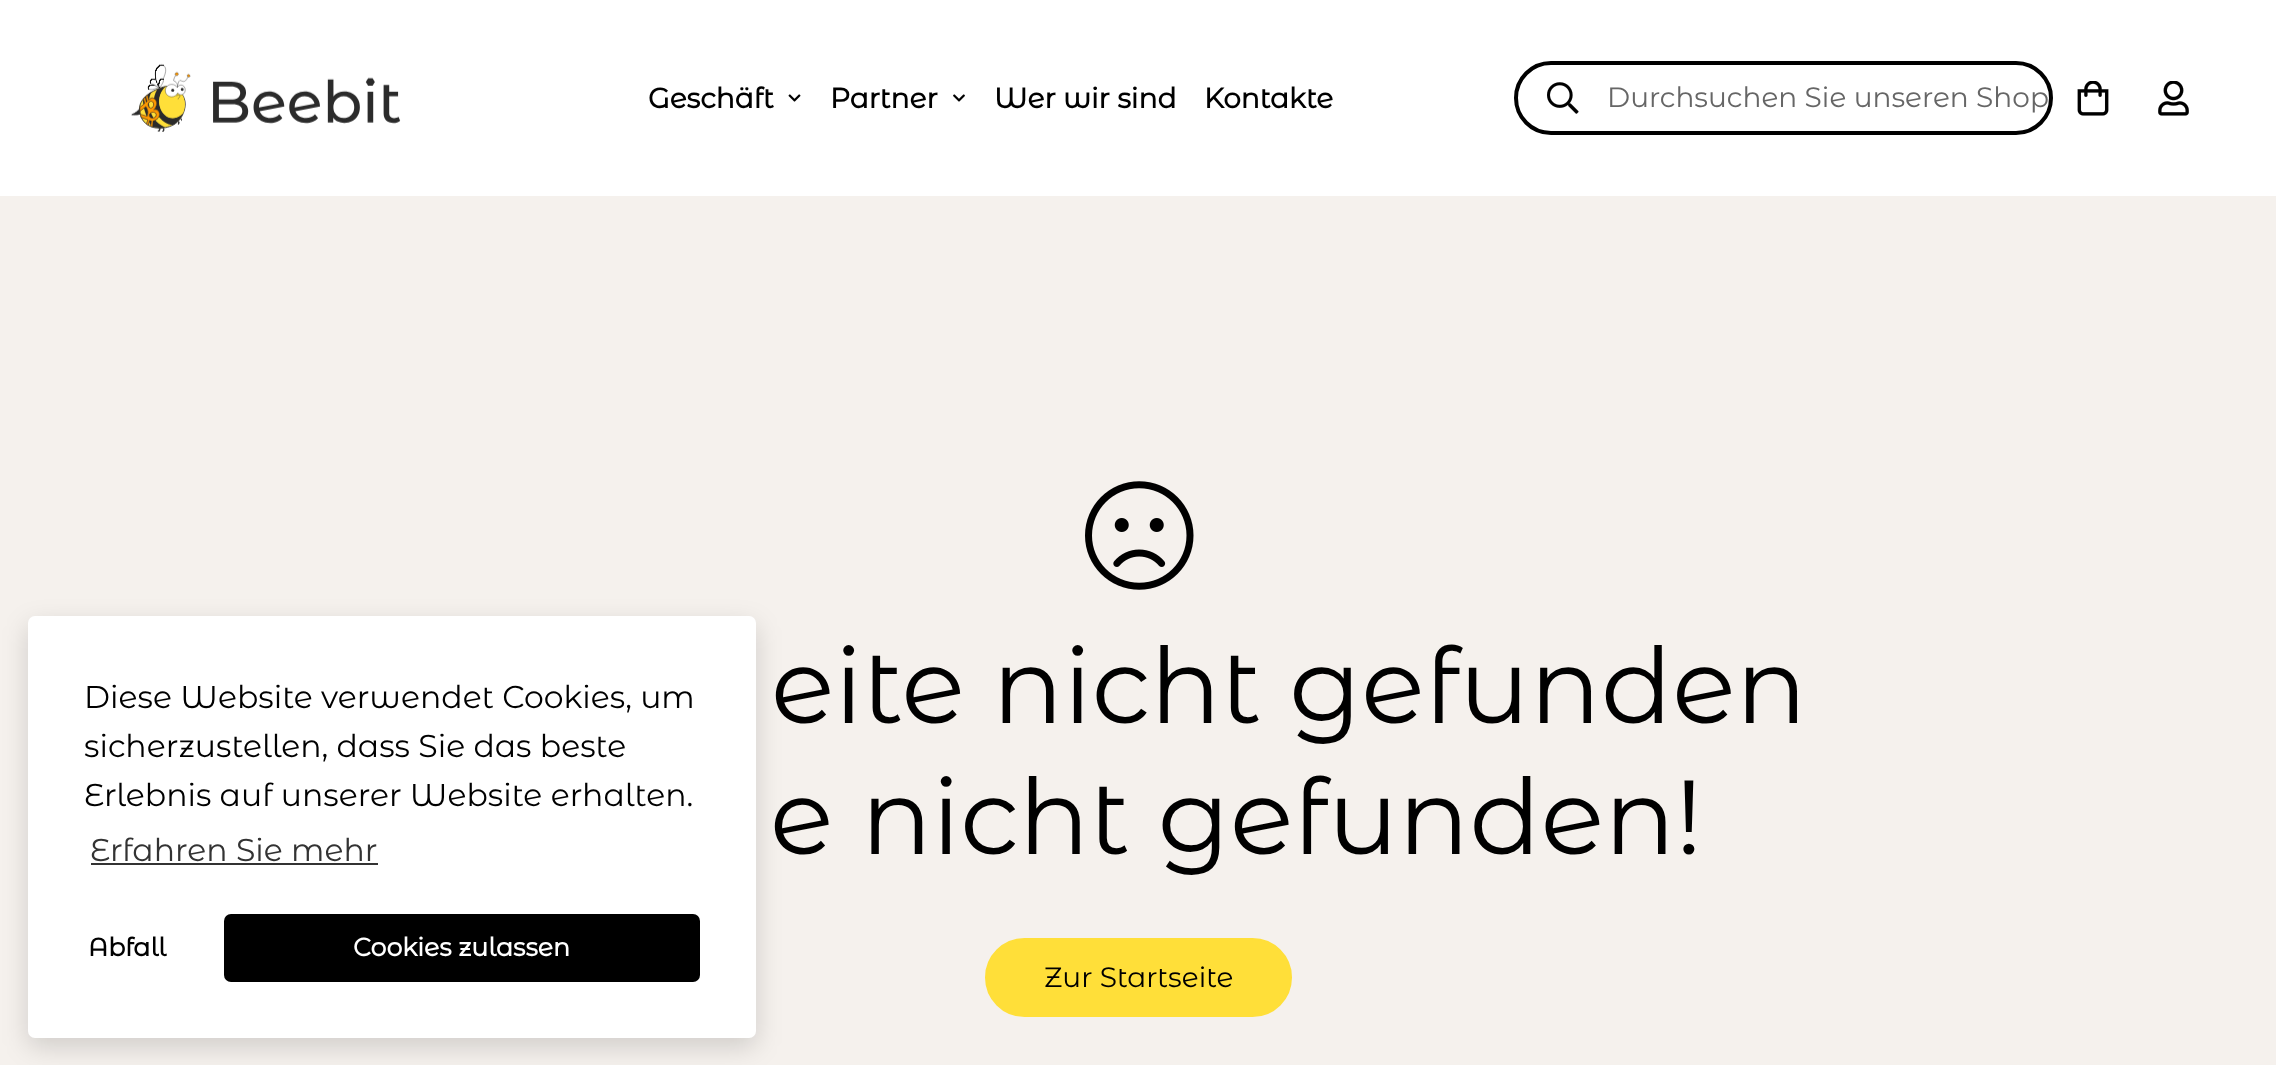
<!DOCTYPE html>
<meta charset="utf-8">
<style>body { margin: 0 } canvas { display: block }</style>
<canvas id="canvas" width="2276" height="1065"></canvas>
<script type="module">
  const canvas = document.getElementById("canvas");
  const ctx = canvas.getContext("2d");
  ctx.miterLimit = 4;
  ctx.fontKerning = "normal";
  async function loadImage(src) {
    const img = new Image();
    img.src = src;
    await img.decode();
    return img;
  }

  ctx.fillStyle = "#f5f1ed";
  ctx.fillRect(0, 0, 2276, 1065);
  ctx.fillStyle = "#ffffff";
  ctx.fillRect(0, 0, 2276, 196);
  ctx.drawImage(await loadImage("img1.png"), 131, 63, 270, 69);
  ctx.font = "bold 28px Montserrat Alternates";
  ctx.fillStyle = "#000000";
  ctx.fillText("Geschäft", 648, 108);
  ctx.drawImage(await loadImage("img2.png"), 788, 94, 13, 8);
  ctx.fillText("Partner", 830, 108);
  ctx.drawImage(await loadImage("img3.png"), 953, 94, 12, 8);
  ctx.fillText("Wer wir sind", 994, 108);
  ctx.fillText("Kontakte", 1204, 108);
  ctx.beginPath();
  ctx.roundRect(1516, 63, 535, 70, 35);
  ctx.strokeStyle = "#000000";
  ctx.lineWidth = 4;
  ctx.stroke();
  ctx.drawImage(await loadImage("img4.png"), 1547, 82, 32, 32);
  ctx.font = "28px Montserrat Alternates";
  ctx.fillStyle = "#666666";
  ctx.fillText("Durchsuchen Sie unseren Shop", 1607, 107);
  ctx.drawImage(await loadImage("img5.png"), 2077, 81, 32, 35);
  ctx.drawImage(await loadImage("img6.png"), 2158, 81, 31, 35);
  ctx.fillStyle = "rgba(0, 0, 0, 0.15)";
  ctx.filter = "blur(13px)";
  ctx.beginPath();
  ctx.roundRect(28, 625, 728, 422, 7);
  ctx.fill();
  ctx.filter = "none";
  ctx.fillStyle = "#ffffff";
  ctx.beginPath();
  ctx.roundRect(28, 616, 728, 422, 7);
  ctx.fill();
  ctx.font = "31.5px Montserrat Alternates";
  ctx.fillStyle = "#000000";
  ctx.fillText("Diese Website verwendet Cookies, um", 84, 708);
  ctx.fillText("sicherzustellen, dass Sie das beste", 84, 757);
  ctx.fillText("Erlebnis auf unserer Website erhalten.", 84, 806);
  ctx.fillStyle = "#333333";
  ctx.fillText("Erfahren Sie mehr", 90, 861);
  ctx.fillRect(91, 863, 287, 2);
  ctx.font = "bold 25.25px Montserrat Alternates";
  ctx.fillStyle = "#000000";
  ctx.fillText("Abfall", 88, 956);
  ctx.beginPath();
  ctx.roundRect(224, 914, 476, 68, 7);
  ctx.fill();
  ctx.fillStyle = "#ffffff";
  ctx.fillText("Cookies zulassen", 353, 956);
  ctx.drawImage(await loadImage("img7.png"), 1085, 481, 109, 109);
  ctx.font = "105px Montserrat Alternates";
  ctx.fillStyle = "#000000";
  ctx.fillText("eite nicht gefunden", 771, 723);
  ctx.fillText("e nicht gefunden!", 770, 854);
  ctx.fillStyle = "#ffdf39";
  ctx.beginPath();
  ctx.roundRect(986, 939, 305, 77, 38.5);
  ctx.fill();
  ctx.strokeStyle = "#ffdf39";
  ctx.lineWidth = 2;
  ctx.stroke();
  ctx.font = "28px Montserrat Alternates";
  ctx.fillStyle = "#000000";
  ctx.fillText("Zur Startseite", 1044, 987);
</script>
